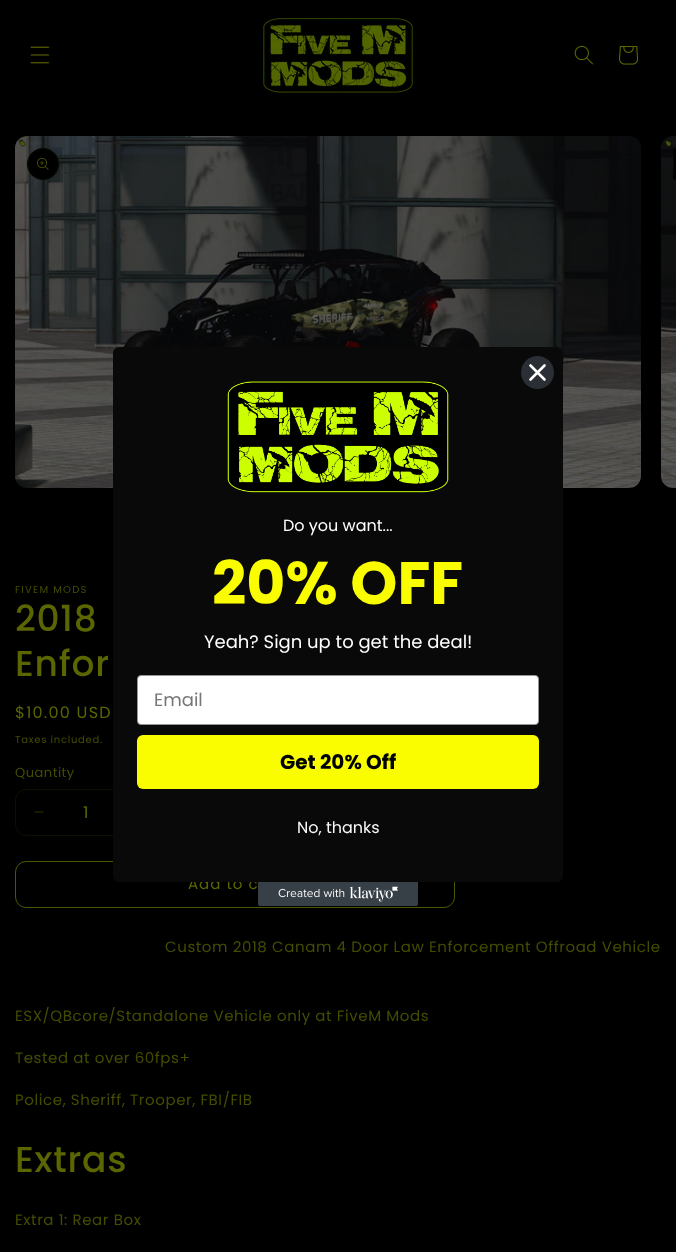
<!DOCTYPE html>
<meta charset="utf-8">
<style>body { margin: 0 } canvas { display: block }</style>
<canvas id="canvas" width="676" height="1252"></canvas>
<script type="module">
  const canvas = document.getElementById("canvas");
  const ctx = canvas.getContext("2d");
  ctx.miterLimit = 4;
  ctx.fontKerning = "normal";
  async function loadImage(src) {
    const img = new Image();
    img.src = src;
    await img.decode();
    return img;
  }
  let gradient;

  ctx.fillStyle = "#ffffff";
  ctx.fillRect(0, 0, 676, 1252);
  gradient = ctx.createLinearGradient(-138, 133, 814, 1119);
  gradient.addColorStop(1, "#000000");
  gradient.addColorStop(1, "#605e5a");
  ctx.fillStyle = gradient;
  ctx.fillRect(0, 0, 676, 110);
  ctx.drawImage(await loadImage("img1.png"), 30, 46, 20, 18);
  ctx.drawImage(await loadImage("img2.png"), 263, 18, 150, 75);
  ctx.drawImage(await loadImage("img3.png"), 574, 45, 19, 20);
  ctx.drawImage(await loadImage("img4.png"), 619, 46, 20, 19);
  ctx.fillRect(0, 110, 676, 1142);
  ctx.drawImage(await loadImage("img7.png"), 15, 136, 626, 352);
  ctx.drawImage(await loadImage("img10.png"), 34, 811, 10, 2);
  ctx.beginPath();
  ctx.roundRect(15.5, 789.5, 141, 46, 10.5);
  ctx.strokeStyle = "#0e0f00";
  ctx.stroke();
  ctx.beginPath();
  ctx.roundRect(15.5, 861.5, 439, 46, 10.5);
  ctx.strokeStyle = "#4e5700";
  ctx.stroke();
  ctx.letterSpacing = "1px";
  ctx.font = "15px Poppins";
  ctx.fillStyle = "#5c6600";
  ctx.fillText("Add to c", 188, 889);
  ctx.fillStyle = "#090909";
  ctx.beginPath();
  ctx.roundRect(113, 347, 450, 535, 6);
  ctx.fill();
  ctx.fillStyle = "#292f34";
  ctx.beginPath();
  ctx.arc(537.5, 372.5, 16.5, 0, Math.PI * 2);
  ctx.fill();
  ctx.beginPath();
  ctx.moveTo(530.5, 365.5);
  ctx.lineTo(544.5, 379.5);
  ctx.moveTo(530.5, 379.5);
  ctx.lineTo(544.5, 365.5);
  ctx.closePath();
  ctx.strokeStyle = "#ffffff";
  ctx.lineWidth = 2.6;
  ctx.lineCap = "round";
  ctx.lineJoin = "round";
  ctx.stroke();
  ctx.drawImage(await loadImage("img5.png"), 227, 381, 222, 112);
  ctx.letterSpacing = "0px";
  ctx.font = "16px 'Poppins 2'";
  ctx.fillStyle = "#ffffff";
  ctx.fillText("Do you want...", 283, 531);
  ctx.font = "bold 60px Poppins";
  ctx.fillStyle = "#f9fd00";
  ctx.fillText("20% OFF", 212, 604);
  ctx.font = "18px 'Poppins 2'";
  ctx.fillStyle = "#ffffff";
  ctx.fillText("Yeah? Sign up to get the deal!", 204, 648);
  ctx.beginPath();
  ctx.roundRect(137.5, 675.5, 401, 49, 3.5);
  ctx.fill();
  ctx.strokeStyle = "#949596";
  ctx.lineWidth = 1;
  ctx.lineJoin = "miter";
  ctx.stroke();
  ctx.fillStyle = "#767676";
  ctx.fillText("Email", 154, 706);
  ctx.fillStyle = "#f9fd00";
  ctx.beginPath();
  ctx.roundRect(137, 735, 402, 54, 6);
  ctx.fill();
  ctx.font = "bold 20px Poppins";
  ctx.fillStyle = "#000000";
  ctx.fillText("Get 20% Off", 280, 769);
  ctx.font = "16px 'Poppins 2'";
  ctx.fillStyle = "#f8f8f8";
  ctx.fillText("No, thanks", 297, 833);
  ctx.drawImage(await loadImage("img6.png"), 258, 882, 160, 24);
  ctx.fillStyle = "#000000";
  ctx.beginPath();
  ctx.arc(43, 164, 16, 0, Math.PI * 2);
  ctx.fill();
  ctx.beginPath();
  ctx.arc(43, 164, 15.5, 0, Math.PI * 2);
  ctx.strokeStyle = "rgba(92, 102, 0, 0.1)";
  ctx.stroke();
  ctx.drawImage(await loadImage("img8.png"), 37, 158, 12, 12);
  ctx.drawImage(await loadImage("img9.png"), 661, 136, 15, 352);
  ctx.beginPath();
  ctx.roundRect(673, 148, 3, 32, [16, 0, 0, 16]);
  ctx.fill();
  ctx.beginPath();
  ctx.roundRect(673.5, 148.5, 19, 31, 15.5);
  ctx.stroke();
  ctx.letterSpacing = "1.25px";
  ctx.font = "10px Poppins";
  ctx.fillStyle = "#454c00";
  ctx.fillText("FIVEM MODS", 15, 593);
  ctx.letterSpacing = "0.75px";
  ctx.font = "500 36px Poppins";
  ctx.fillStyle = "#5c6600";
  ctx.fillText("2018", 15, 631);
  ctx.fillText("Enfor", 15, 676);
  ctx.letterSpacing = "1.25px";
  ctx.font = "16px Poppins";
  ctx.fillText("$10.00 USD", 15, 718);
  ctx.letterSpacing = "0.75px";
  ctx.font = "10px Poppins";
  ctx.fillStyle = "#454c00";
  ctx.fillText("Taxes included.", 15, 743);
  ctx.letterSpacing = "0.5px";
  ctx.font = "13px Poppins";
  ctx.fillText("Quantity", 15, 777);
  ctx.letterSpacing = "0px";
  ctx.font = "500 16px Poppins";
  ctx.fillStyle = "#4e5700";
  ctx.fillText("1", 83, 818);
  ctx.letterSpacing = "0.6px";
  ctx.font = "15px Poppins";
  ctx.fillStyle = "#454c00";
  ctx.fillText("Custom 2018 Canam 4 Door Law Enforcement Offroad Vehicle", 165, 952);
  ctx.fillText("ESX/QBcore/Standalone Vehicle only at FiveM Mods", 15, 1021);
  ctx.fillText("Tested at over 60fps+", 15, 1063);
  ctx.fillText("Police, Sheriff, Trooper, FBI/FIB", 15, 1105);
  ctx.letterSpacing = "0.75px";
  ctx.font = "500 36px Poppins";
  ctx.fillStyle = "#5c6600";
  ctx.fillText("Extras", 15, 1172);
  ctx.letterSpacing = "0.6px";
  ctx.font = "15px Poppins";
  ctx.fillStyle = "#454c00";
  ctx.fillText("Extra 1: Rear Box", 15, 1225);
</script>
